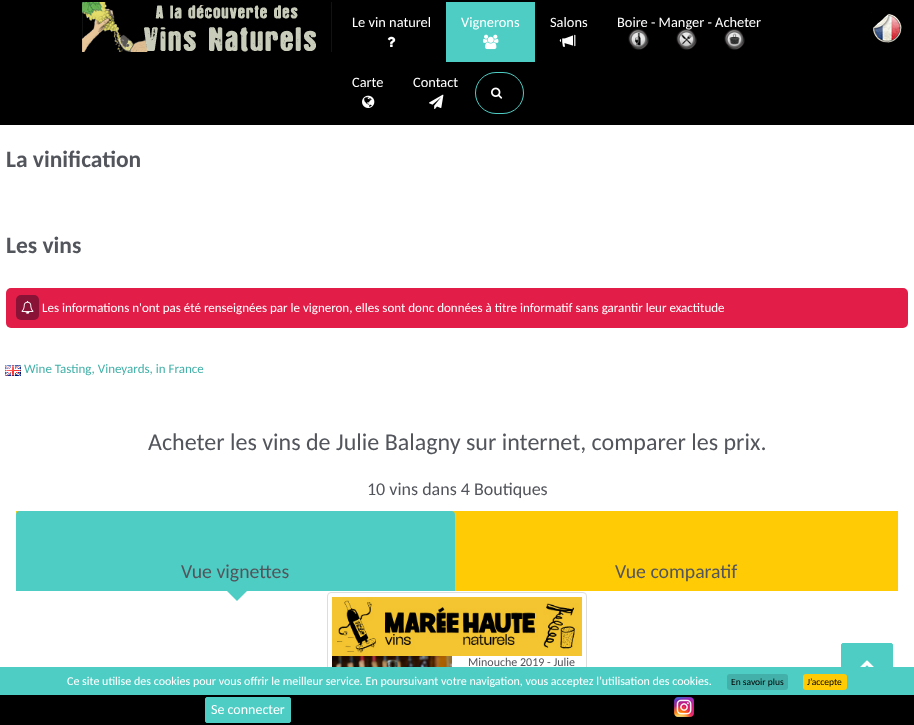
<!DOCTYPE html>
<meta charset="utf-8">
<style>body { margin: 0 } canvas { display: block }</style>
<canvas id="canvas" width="914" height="725"></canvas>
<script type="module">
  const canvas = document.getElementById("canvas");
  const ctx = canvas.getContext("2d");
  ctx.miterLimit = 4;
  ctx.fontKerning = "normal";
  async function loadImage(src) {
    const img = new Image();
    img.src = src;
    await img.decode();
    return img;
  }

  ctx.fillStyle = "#ffffff";
  ctx.fillRect(0, 0, 914, 725);
  ctx.fillStyle = "#000000";
  ctx.fillRect(0, 0, 914, 125);
  ctx.drawImage(await loadImage("img1.png"), 82, 2, 250, 50);
  ctx.font = "14.4px Carlito";
  ctx.fillStyle = "#ffffff";
  ctx.fillText("Le vin naturel", 352, 27);
  ctx.drawImage(await loadImage("img2.png"), 387, 36, 9, 11);
  ctx.fillStyle = "#4ecdc4";
  ctx.fillRect(446, 2, 89, 60);
  ctx.fillStyle = "#ffffff";
  ctx.fillText("Vignerons", 461, 27);
  ctx.drawImage(await loadImage("img3.png"), 483, 34, 16, 16);
  ctx.fillText("Salons", 550, 27);
  ctx.drawImage(await loadImage("img4.png"), 559, 34, 17, 13);
  ctx.fillText("Boire - Manger - Acheter", 617, 27);
  ctx.drawImage(await loadImage("img5.png"), 628, 29, 21, 21);
  ctx.drawImage(await loadImage("img6.png"), 676, 29, 21, 21);
  ctx.drawImage(await loadImage("img7.png"), 724, 29, 21, 21);
  ctx.fillText("Carte", 352, 87);
  ctx.drawImage(await loadImage("img8.png"), 362, 95, 13, 13);
  ctx.fillText("Contact", 413, 87);
  ctx.drawImage(await loadImage("img9.png"), 429, 94, 15, 15);
  ctx.beginPath();
  ctx.roundRect(475.5, 72.5, 48, 41, 20.5);
  ctx.strokeStyle = "#4ecdc4";
  ctx.stroke();
  ctx.drawImage(await loadImage("img10.png"), 491, 87, 12, 12);
  ctx.drawImage(await loadImage("img11.png"), 871, 12, 31, 31);
  ctx.font = "bold 23.5px Carlito";
  ctx.fillStyle = "#53555c";
  ctx.fillText("La vinification", 6, 167);
  ctx.fillText("Les vins", 6, 253);
  ctx.fillStyle = "#e11d48";
  ctx.beginPath();
  ctx.roundRect(6, 288, 902, 40, 5);
  ctx.fill();
  ctx.fillStyle = "#881337";
  ctx.beginPath();
  ctx.roundRect(16, 295, 23, 25, 5);
  ctx.fill();
  ctx.drawImage(await loadImage("img12.png"), 21, 300, 13, 14);
  ctx.font = "13px Carlito";
  ctx.fillStyle = "#ffffff";
  ctx.fillText("Les informations n'ont pas été renseignées par le vigneron, elles sont donc données à titre informatif sans garantir leur exactitude", 42, 312);
  ctx.drawImage(await loadImage("img13.png"), 5, 365, 16, 11);
  ctx.fillStyle = "#43b1a9";
  ctx.fillText("Wine Tasting, Vineyards, in France", 24, 373);
  ctx.font = "24px Carlito";
  ctx.fillStyle = "#53555c";
  ctx.fillText("Acheter les vins de Julie Balagny sur internet, comparer les prix.", 148, 450);
  ctx.font = "18px Carlito";
  ctx.fillText("10 vins dans 4 Boutiques", 367, 495);
  ctx.fillStyle = "#ffcb05";
  ctx.fillRect(16, 511, 882, 80);
  ctx.fillStyle = "#4ecdc4";
  ctx.beginPath();
  ctx.roundRect(16, 511, 439, 80, [4, 4, 0, 0]);
  ctx.fill();
  ctx.font = "19.75px Carlito";
  ctx.fillStyle = "#53555c";
  ctx.fillText("Vue vignettes", 181, 578);
  ctx.fillStyle = "#4ecdc4";
  ctx.beginPath();
  ctx.moveTo(227, 591);
  ctx.lineTo(247, 591);
  ctx.lineTo(237, 601);
  ctx.closePath();
  ctx.fill();
  ctx.fillStyle = "#53555c";
  ctx.fillText("Vue comparatif", 615, 578);
  ctx.beginPath();
  ctx.roundRect(327.5, 592.5, 259, 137, 3.5);
  ctx.strokeStyle = "#dddddd";
  ctx.stroke();
  ctx.drawImage(await loadImage("img14.png"), 332, 597, 250, 59);
  ctx.drawImage(await loadImage("img15.png"), 332, 656, 120, 11);
  ctx.font = "12px Carlito";
  ctx.fillText("Minouche 2019 - Julie", 468, 666);
  ctx.fillStyle = "#4ecdc4";
  ctx.beginPath();
  ctx.roundRect(841.5, 643.5, 51, 45, 1.5);
  ctx.fill();
  ctx.strokeStyle = "#4ecdc4";
  ctx.stroke();
  ctx.drawImage(await loadImage("img16.png"), 860, 660, 14, 7);
  ctx.fillStyle = "#000000";
  ctx.fillRect(0, 695, 914, 30);
  ctx.fillStyle = "#4ecdc4";
  ctx.beginPath();
  ctx.roundRect(205.5, 697.5, 85, 25, 1.5);
  ctx.fill();
  ctx.stroke();
  ctx.font = "14px Carlito";
  ctx.fillStyle = "#ffffff";
  ctx.fillText("Se connecter", 211, 714);
  ctx.drawImage(await loadImage("img17.png"), 674, 697, 20, 20);
  ctx.fillStyle = "#4ecdc4";
  ctx.fillRect(0, 667, 914, 28);
  ctx.font = "12px Carlito";
  ctx.fillStyle = "#ffffff";
  ctx.fillText("Ce site utilise des cookies pour vous offrir le meilleur service. En poursuivant votre navigation, vous acceptez l’utilisation des cookies.", 67, 685);
  ctx.fillStyle = "#43b1a9";
  ctx.beginPath();
  ctx.roundRect(727, 674, 61, 16, 3);
  ctx.fill();
  ctx.font = "9.5px Carlito";
  ctx.fillStyle = "#000000";
  ctx.fillText("En savoir plus", 731, 685);
  ctx.fillStyle = "#ffcb05";
  ctx.beginPath();
  ctx.roundRect(803, 674, 44, 16, 3);
  ctx.fill();
  ctx.fillStyle = "#000000";
  ctx.fillText("J’accepte", 807, 685);
</script>
